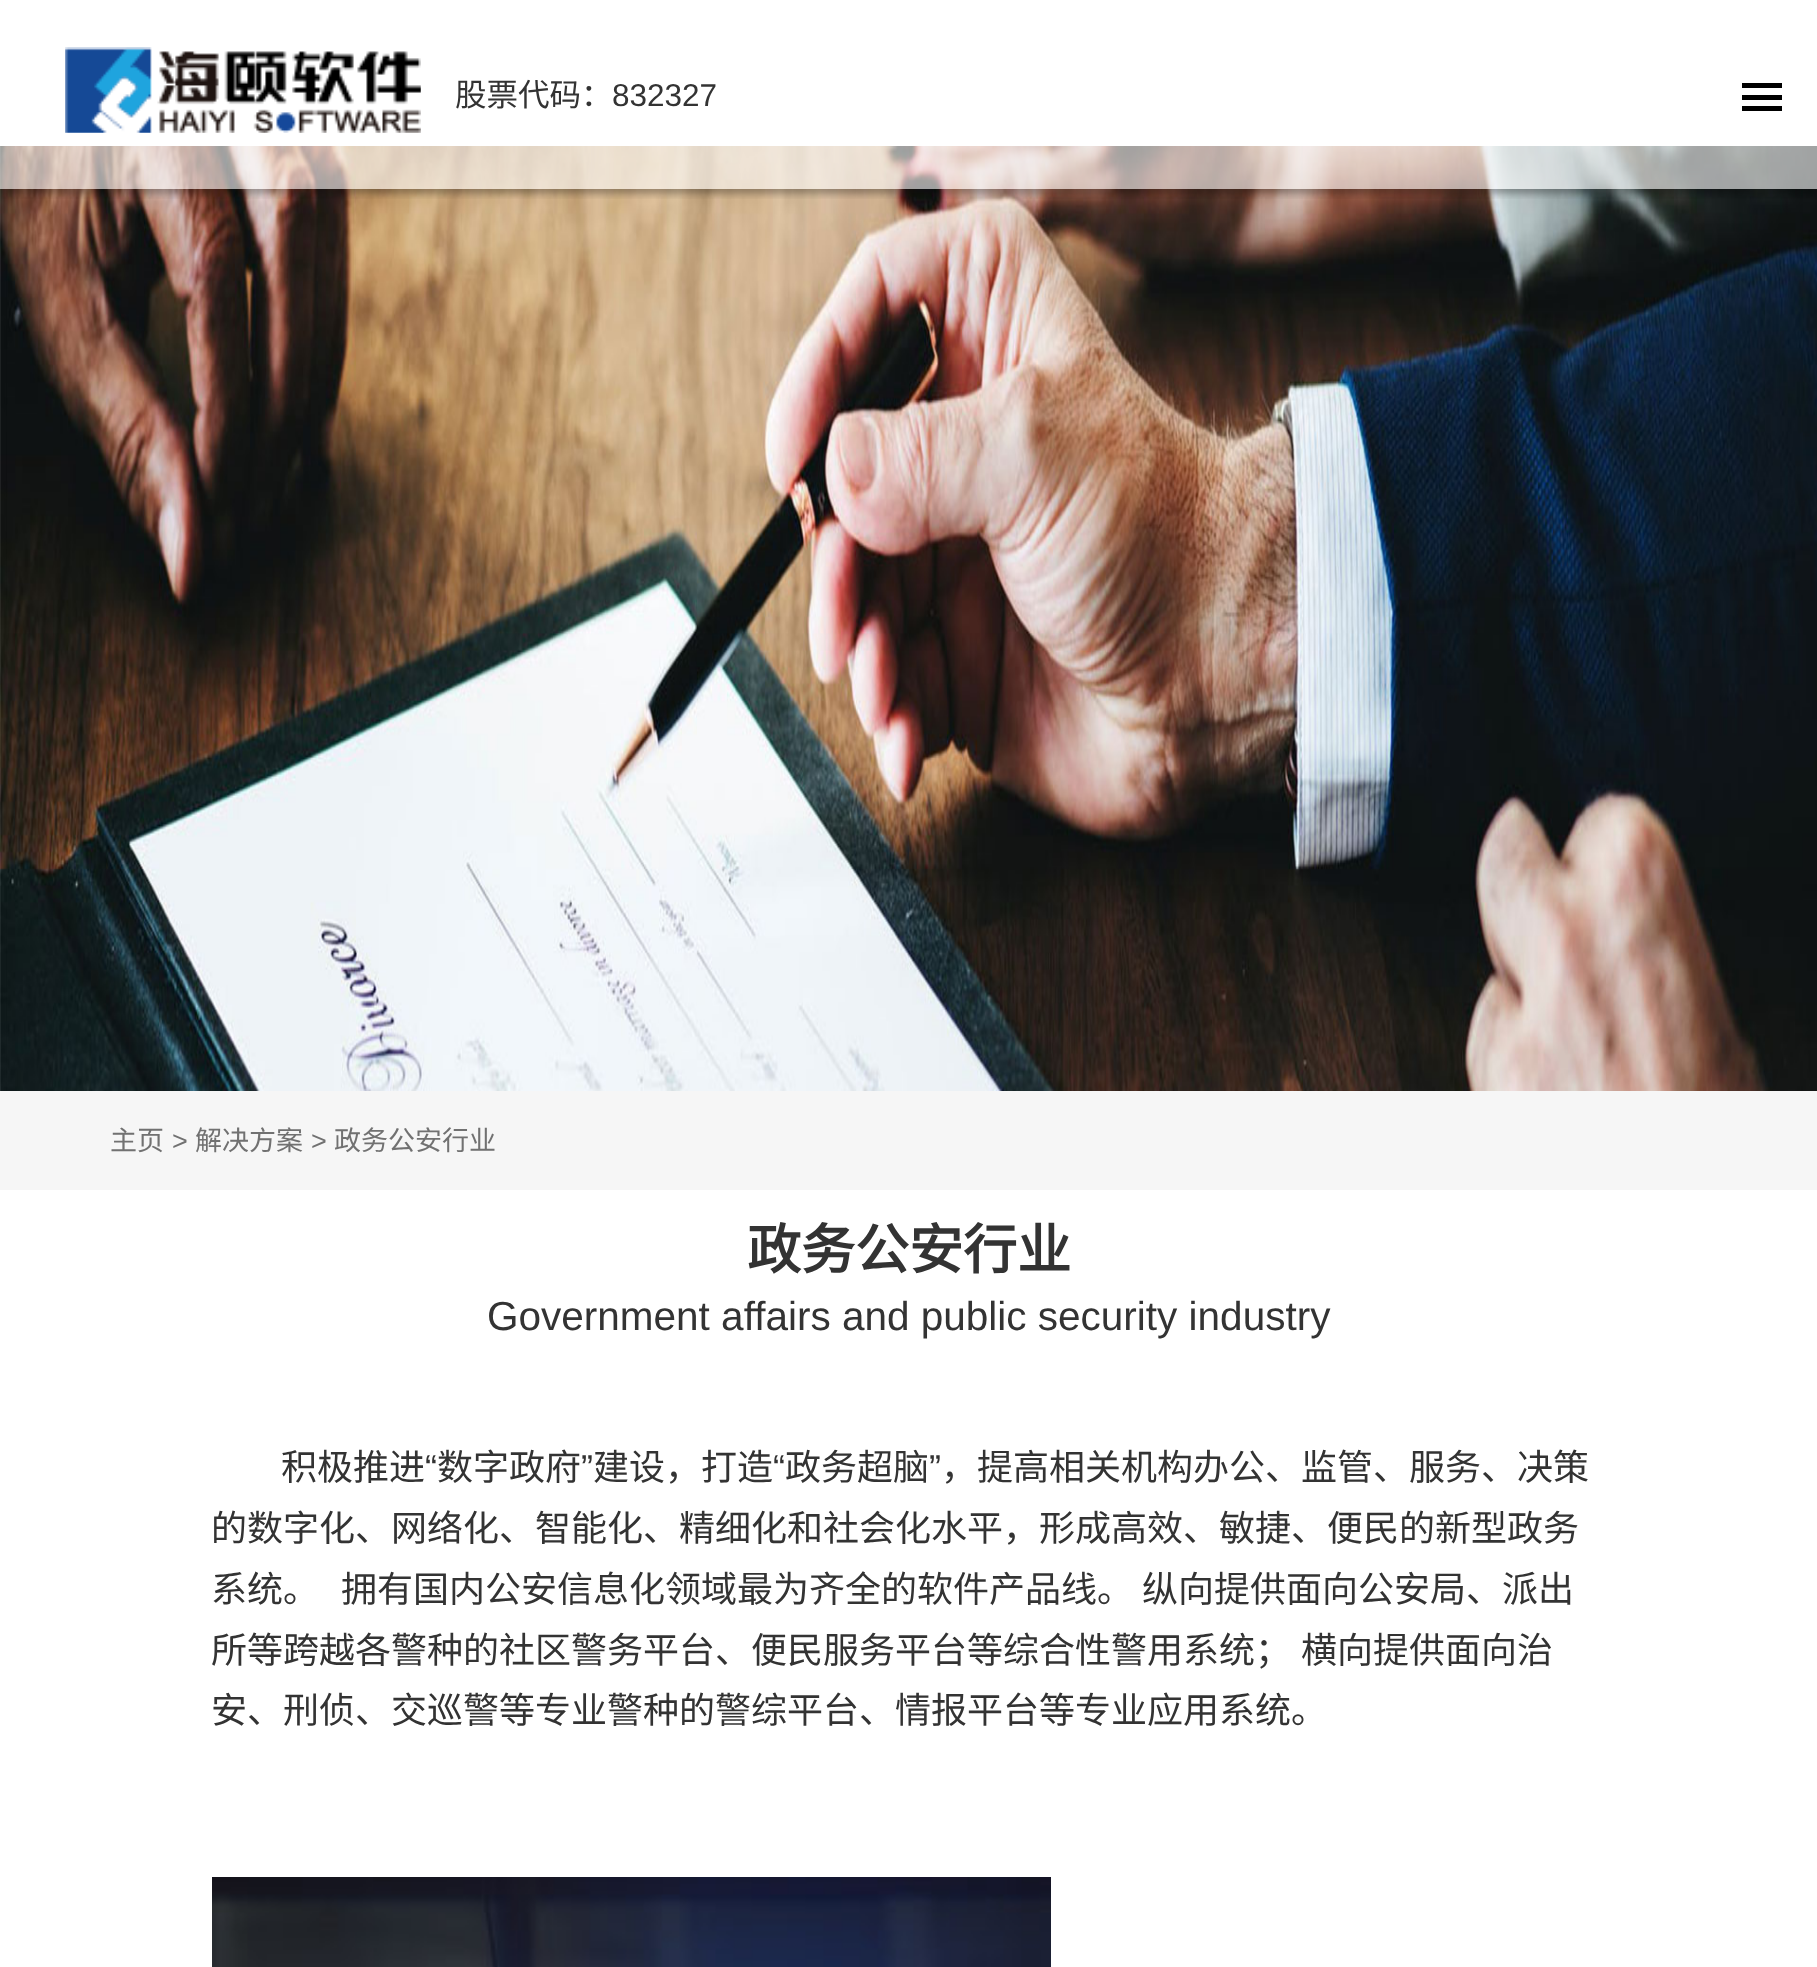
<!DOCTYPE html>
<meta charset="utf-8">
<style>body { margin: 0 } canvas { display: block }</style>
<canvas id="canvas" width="1817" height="1967"></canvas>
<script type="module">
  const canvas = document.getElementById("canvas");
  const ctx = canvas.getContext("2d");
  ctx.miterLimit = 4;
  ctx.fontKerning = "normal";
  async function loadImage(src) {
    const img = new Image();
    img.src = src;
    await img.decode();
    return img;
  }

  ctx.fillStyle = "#ffffff";
  ctx.fillRect(0, 0, 1817, 1967);
  ctx.drawImage(await loadImage("img2.png"), 0, 146, 1817, 945);
  ctx.save();
  ctx.beginPath();
  ctx.rect(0, 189, 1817, 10);
  ctx.clip();
  ctx.fillStyle = "rgba(0, 0, 0, 0.3)";
  ctx.filter = "blur(3.5px)";
  ctx.beginPath();
  ctx.rect(0, 5, 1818, 189);
  ctx.fill();
  ctx.filter = "none";
  ctx.restore();
  ctx.fillStyle = "rgba(255, 255, 255, 0.6)";
  ctx.fillRect(0, 146, 1817, 43);
  ctx.drawImage(await loadImage("img1.png"), 65, 47, 356, 86);
  ctx.font = "31.5px Noto Sans CJK SC";
  ctx.fillStyle = "#333333";
  ctx.fillText("股票代码：", 455, 106);
  ctx.font = "31.5px Liberation Sans";
  ctx.fillText("832327", 612, 106);
  ctx.fillStyle = "#000000";
  ctx.fillRect(1742, 95, 40, 5);
  ctx.fillRect(1742, 83, 40, 5);
  ctx.fillRect(1742, 106, 40, 5);
  ctx.fillStyle = "#f6f6f6";
  ctx.fillRect(0, 1091, 1817, 99);
  ctx.font = "27px Noto Sans CJK SC";
  ctx.fillStyle = "#717171";
  ctx.fillText("主页", 110, 1150);
  ctx.font = "27px Liberation Sans";
  ctx.fillText(">", 172, 1150);
  ctx.font = "27px Noto Sans CJK SC";
  ctx.fillText("解决方案", 195, 1150);
  ctx.font = "27px Liberation Sans";
  ctx.fillText(">", 311, 1150);
  ctx.font = "27px Noto Sans CJK SC";
  ctx.fillText("政务公安行业", 334, 1150);
  ctx.font = "bold 54px Noto Sans CJK SC";
  ctx.fillStyle = "#333333";
  ctx.fillText("政务公安行业", 747, 1269);
  ctx.font = "40.5px Liberation Sans";
  ctx.fillText("Government affairs and public security industry", 487, 1330);
  ctx.font = "36px Noto Sans CJK SC";
  ctx.fillText("积极推进", 281, 1480);
  ctx.font = "36px Liberation Sans";
  ctx.fillText("“", 425, 1480);
  ctx.font = "36px Noto Sans CJK SC";
  ctx.fillText("数字政府", 437, 1480);
  ctx.font = "36px Liberation Sans";
  ctx.fillText("”", 581, 1480);
  ctx.font = "36px Noto Sans CJK SC";
  ctx.fillText("建设，打造", 593, 1480);
  ctx.font = "36px Liberation Sans";
  ctx.fillText("“", 773, 1480);
  ctx.font = "36px Noto Sans CJK SC";
  ctx.fillText("政务超脑", 785, 1480);
  ctx.font = "36px Liberation Sans";
  ctx.fillText("”", 929, 1480);
  ctx.font = "36px Noto Sans CJK SC";
  ctx.fillText("，提高相关机构办公、监管、服务、决策", 941, 1480);
  ctx.fillText("的数字化、网络化、智能化、精细化和社会化水平，形成高效、敏捷、便民的新型政务", 211, 1541);
  ctx.fillText("系统。", 211, 1602);
  ctx.wordSpacing = "1px";
  ctx.fillText("拥有国内公安信息化领域最为齐全的软件产品线。 纵向提供面向公安局、派出", 341, 1602);
  ctx.wordSpacing = "2px";
  ctx.fillText("所等跨越各警种的社区警务平台、便民服务平台等综合性警用系统； 横向提供面向治", 211, 1663);
  ctx.wordSpacing = "0px";
  ctx.fillText("安、刑侦、交巡警等专业警种的警综平台、情报平台等专业应用系统。", 211, 1723);
  ctx.drawImage(await loadImage("img3.png"), 212, 1877, 839, 90);
</script>
